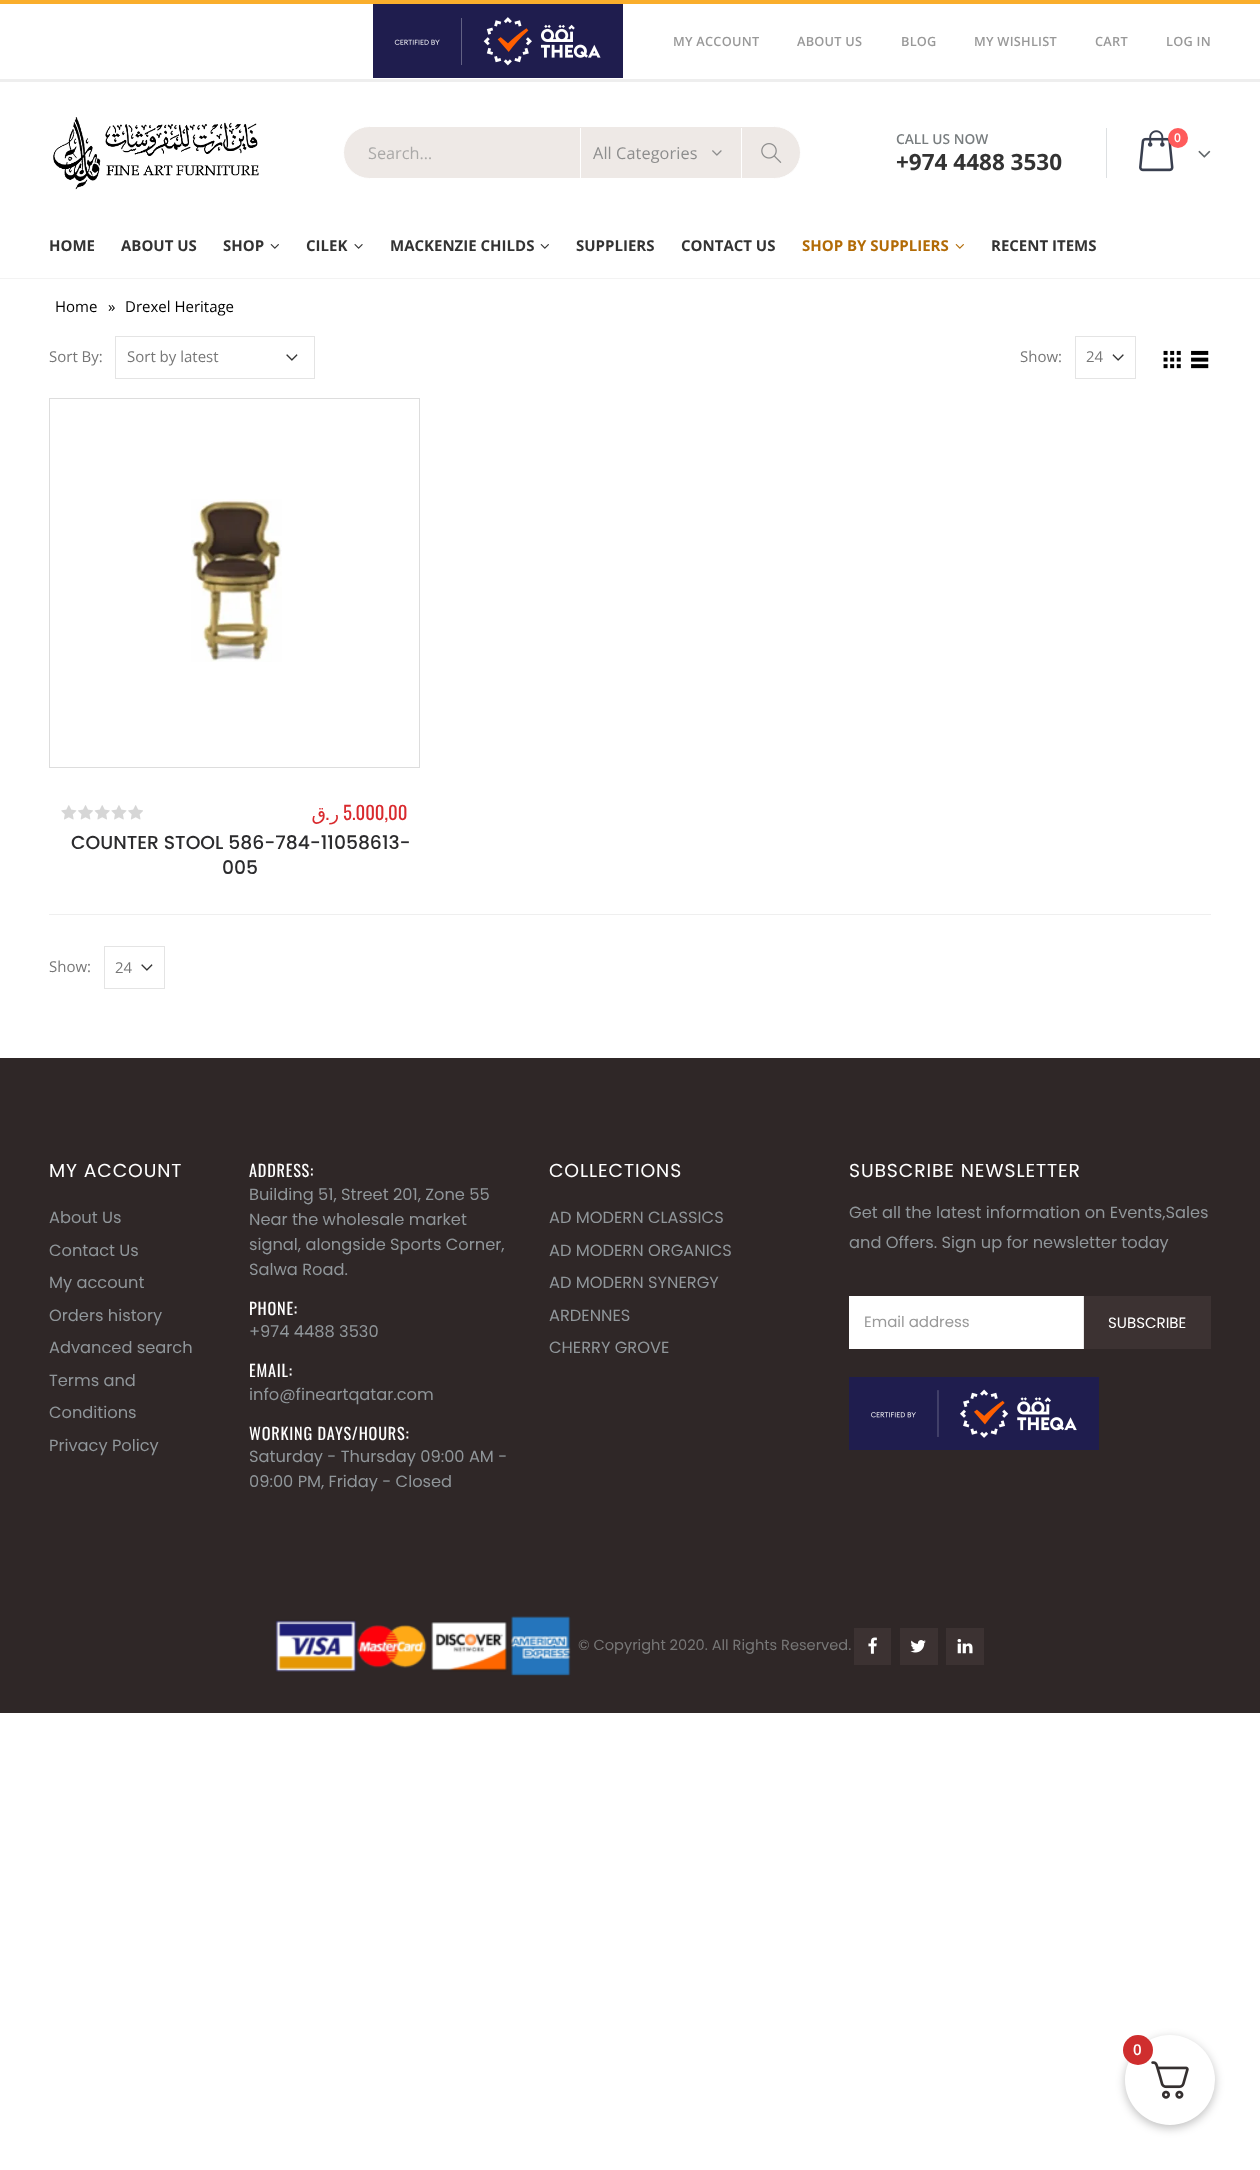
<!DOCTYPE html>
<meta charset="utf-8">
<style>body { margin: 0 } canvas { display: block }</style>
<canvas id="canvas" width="1260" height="2170"></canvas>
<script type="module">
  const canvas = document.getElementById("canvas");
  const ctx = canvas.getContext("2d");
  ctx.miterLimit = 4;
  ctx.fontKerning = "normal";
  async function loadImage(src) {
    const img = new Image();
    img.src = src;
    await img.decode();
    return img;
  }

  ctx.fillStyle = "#ffffff";
  ctx.fillRect(0, 0, 1260, 2170);
  ctx.fillStyle = "#faae2c";
  ctx.fillRect(0, 0, 1260, 4);
  ctx.fillStyle = "#eeeeee";
  ctx.fillRect(0, 79, 1260, 3);
  ctx.drawImage(await loadImage("img1.png"), 373, 4, 250, 74);
  ctx.letterSpacing = "0.25px";
  ctx.font = "600 12.75px Open Sans";
  ctx.fillStyle = "#999999";
  ctx.fillText("MY ACCOUNT", 673, 46);
  ctx.fillText("ABOUT US", 797, 46);
  ctx.fillText("BLOG", 901, 46);
  ctx.fillText("MY WISHLIST", 974, 46);
  ctx.fillText("CART", 1095, 46);
  ctx.fillText("LOG IN", 1166, 46);
  ctx.drawImage(await loadImage("img2.png"), 53, 117, 206, 73);
  ctx.fillStyle = "#eee9e6";
  ctx.beginPath();
  ctx.roundRect(343.5, 126.5, 457, 52, 26);
  ctx.fill();
  ctx.strokeStyle = "#ffffff";
  ctx.stroke();
  ctx.fillStyle = "#ffffff";
  ctx.fillRect(580, 128, 1, 50);
  ctx.letterSpacing = "0px";
  ctx.font = "16.25px Open Sans";
  ctx.fillStyle = "#aaa9a8";
  ctx.fillText("Search…", 368, 159);
  ctx.fillStyle = "#ffffff";
  ctx.fillRect(741, 128, 1, 50);
  ctx.letterSpacing = "0.1px";
  ctx.fillStyle = "#8d8d8d";
  ctx.fillText("All Categories", 593, 159);
  ctx.drawImage(await loadImage("img3.png"), 712, 150, 10, 6);
  ctx.drawImage(await loadImage("img4.png"), 761, 143, 21, 20);
  ctx.fillStyle = "#dde0e2";
  ctx.fillRect(1106, 128, 1, 50);
  ctx.letterSpacing = "0px";
  ctx.font = "600 13.75px Open Sans";
  ctx.fillStyle = "#787d7f";
  ctx.fillText("CALL US NOW", 896, 144);
  ctx.font = "bold 22.5px Open Sans";
  ctx.fillStyle = "#333333";
  ctx.fillText("+974 4488 3530", 896, 170);
  ctx.drawImage(await loadImage("img5.png"), 1139, 130, 35, 42);
  ctx.fillStyle = "#ff5b5b";
  ctx.beginPath();
  ctx.arc(1178, 138, 10, 0, Math.PI * 2);
  ctx.fill();
  ctx.font = "600 12px Open Sans";
  ctx.fillStyle = "#ffffff";
  ctx.fillText("0", 1174, 142);
  ctx.drawImage(await loadImage("img6.png"), 1198, 150, 13, 8);
  ctx.font = "bold 15px Open Sans";
  ctx.fillStyle = "#333333";
  ctx.fillText("HOME", 49, 251);
  ctx.fillText("ABOUT US", 121, 251);
  ctx.fillText("SHOP", 223, 251);
  ctx.drawImage(await loadImage("img7.png"), 270, 244, 9, 5);
  ctx.fillText("CILEK", 306, 251);
  ctx.drawImage(await loadImage("img8.png"), 354, 244, 9, 5);
  ctx.fillText("MACKENZIE CHILDS", 390, 251);
  ctx.drawImage(await loadImage("img7.png"), 540, 244, 9, 5);
  ctx.fillText("SUPPLIERS", 576, 251);
  ctx.fillText("CONTACT US", 681, 251);
  ctx.fillStyle = "#b26b06";
  ctx.fillText("SHOP BY SUPPLIERS", 802, 251);
  ctx.drawImage(await loadImage("img9.png"), 955, 244, 9, 5);
  ctx.fillStyle = "#333333";
  ctx.fillText("RECENT ITEMS", 991, 251);
  ctx.fillStyle = "#f3f3f3";
  ctx.fillRect(0, 278, 1260, 1);
  ctx.font = "15px Open Sans";
  ctx.fillStyle = "#000000";
  ctx.fillText("Home", 55, 312);
  ctx.fillText("»", 108, 312);
  ctx.fillText("Drexel Heritage", 125, 312);
  ctx.fillStyle = "#777777";
  ctx.fillText("Sort By:", 49, 362);
  ctx.drawImage(await loadImage("img10.png"), 286, 354, 12, 7);
  ctx.strokeStyle = "#e4e4e4";
  ctx.strokeRect(115.5, 336.5, 199, 42);
  ctx.fillText("Sort by latest", 127, 362);
  ctx.fillText("Show:", 1020, 362);
  ctx.drawImage(await loadImage("img11.png"), 1112, 354, 12, 7);
  ctx.strokeRect(1075.5, 336.5, 60, 42);
  ctx.fillText("24", 1086, 362);
  ctx.drawImage(await loadImage("img12.png"), 1163, 350, 18, 19);
  ctx.drawImage(await loadImage("img13.png"), 1191, 350, 18, 19);
  ctx.strokeStyle = "#dddddd";
  ctx.strokeRect(49.5, 398.5, 370, 369);
  ctx.drawImage(await loadImage("img14.png"), 191, 499, 91, 163);
  ctx.drawImage(await loadImage("img15.png"), 61, 805, 82, 15);
  ctx.direction = "rtl";
  ctx.font = "18.75px DejaVu Sans";
  ctx.fillStyle = "#d92a2e";
  ctx.fillText("ق", 326, 820);
  ctx.font = "18.75px Oswald";
  ctx.fillText(".", 329, 820);
  ctx.font = "18.75px DejaVu Sans";
  ctx.fillText("ر", 339, 820);
  ctx.direction = "ltr";
  ctx.font = "18.75px Oswald";
  ctx.fillText("5.000,00", 343, 820);
  ctx.font = "500 18.75px Poppins";
  ctx.fillStyle = "#2b2b2d";
  ctx.fillText("COUNTER STOOL 586-784-11058613-", 71, 849);
  ctx.fillText("005", 222, 874);
  ctx.fillStyle = "#efefef";
  ctx.fillRect(49, 914, 1162, 1);
  ctx.font = "15px Open Sans";
  ctx.fillStyle = "#777777";
  ctx.fillText("Show:", 49, 972);
  ctx.drawImage(await loadImage("img10.png"), 141, 964, 12, 7);
  ctx.strokeStyle = "#e4e4e4";
  ctx.strokeRect(104.5, 946.5, 60, 42);
  ctx.fillText("24", 115, 973);
  ctx.fillStyle = "#2f2727";
  ctx.fillRect(0, 1058, 1260, 655);
  ctx.letterSpacing = "0.9px";
  ctx.font = "18.75px Poppins";
  ctx.fillStyle = "#ffffff";
  ctx.fillText("MY ACCOUNT", 49, 1177);
  ctx.letterSpacing = "0px";
  ctx.font = "16.25px Poppins";
  ctx.fillStyle = "#90969a";
  ctx.fillText("About Us", 49, 1223);
  ctx.fillText("Contact Us", 49, 1256);
  ctx.fillText("My account", 49, 1288);
  ctx.fillText("Orders history", 49, 1321);
  ctx.fillText("Advanced search", 49, 1353);
  ctx.fillText("Terms and", 49, 1386);
  ctx.fillText("Conditions", 49, 1418);
  ctx.fillText("Privacy Policy", 49, 1451);
  ctx.letterSpacing = "0.8px";
  ctx.font = "16.25px Oswald";
  ctx.fillStyle = "#ffffff";
  ctx.fillText("ADDRESS:", 249, 1177);
  ctx.letterSpacing = "0px";
  ctx.font = "16.25px Poppins";
  ctx.fillStyle = "#90969a";
  ctx.fillText("Building 51, Street 201, Zone 55", 249, 1200);
  ctx.fillText("Near the wholesale market", 249, 1225);
  ctx.fillText("signal, alongside Sports Corner,", 249, 1250);
  ctx.fillText("Salwa Road.", 249, 1275);
  ctx.letterSpacing = "0.8px";
  ctx.font = "16.25px Oswald";
  ctx.fillStyle = "#ffffff";
  ctx.fillText("PHONE:", 249, 1315);
  ctx.letterSpacing = "0px";
  ctx.font = "16.25px Poppins";
  ctx.fillStyle = "#90969a";
  ctx.fillText("+974 4488 3530", 249, 1337);
  ctx.letterSpacing = "0.8px";
  ctx.font = "16.25px Oswald";
  ctx.fillStyle = "#ffffff";
  ctx.fillText("EMAIL:", 249, 1377);
  ctx.letterSpacing = "0px";
  ctx.font = "16.25px Poppins";
  ctx.fillStyle = "#90969a";
  ctx.fillText("info@fineartqatar.com", 249, 1400);
  ctx.letterSpacing = "0.8px";
  ctx.font = "16.25px Oswald";
  ctx.fillStyle = "#ffffff";
  ctx.fillText("WORKING DAYS/HOURS:", 249, 1440);
  ctx.letterSpacing = "0px";
  ctx.font = "16.25px Poppins";
  ctx.fillStyle = "#90969a";
  ctx.fillText("Saturday - Thursday 09:00 AM -", 249, 1462);
  ctx.fillText("09:00 PM, Friday - Closed", 249, 1487);
  ctx.letterSpacing = "0.9px";
  ctx.font = "18.75px Poppins";
  ctx.fillStyle = "#ffffff";
  ctx.fillText("COLLECTIONS", 549, 1177);
  ctx.letterSpacing = "0px";
  ctx.font = "16.25px Poppins";
  ctx.fillStyle = "#90969a";
  ctx.fillText("AD MODERN CLASSICS", 549, 1223);
  ctx.fillText("AD MODERN ORGANICS", 549, 1256);
  ctx.fillText("AD MODERN SYNERGY", 549, 1288);
  ctx.fillText("ARDENNES", 549, 1321);
  ctx.fillText("CHERRY GROVE", 549, 1353);
  ctx.letterSpacing = "0.9px";
  ctx.font = "18.75px Poppins";
  ctx.fillStyle = "#ffffff";
  ctx.fillText("SUBSCRIBE NEWSLETTER", 849, 1177);
  ctx.letterSpacing = "0px";
  ctx.font = "16.25px Poppins";
  ctx.fillStyle = "#90969a";
  ctx.fillText("Get all the latest information on Events,Sales", 849, 1218);
  ctx.fillText("and Offers. Sign up for newsletter today", 849, 1248);
  ctx.fillStyle = "#ffffff";
  ctx.fillRect(849, 1296, 234, 53);
  ctx.fillStyle = "#e8e8e8";
  ctx.fillRect(1083, 1296, 1, 53);
  ctx.font = "15px Poppins";
  ctx.fillStyle = "#999999";
  ctx.fillText("Email address", 864, 1327);
  ctx.fillStyle = "#3c3232";
  ctx.fillRect(1084, 1296, 127, 53);
  ctx.fillStyle = "#ffffff";
  ctx.fillText("SUBSCRIBE", 1108, 1328);
  ctx.drawImage(await loadImage("img16.png"), 849, 1377, 250, 73);
  ctx.drawImage(await loadImage("img17.png"), 275, 1616, 296, 60);
  ctx.font = "14.6px Poppins";
  ctx.fillStyle = "#777777";
  ctx.fillText("© Copyright 2020. All Rights Reserved.", 578, 1650);
  ctx.fillStyle = "#3c3232";
  ctx.fillRect(854, 1628, 37, 37);
  ctx.drawImage(await loadImage("img18.png"), 868, 1637, 9, 17);
  ctx.fillRect(900, 1628, 38, 37);
  ctx.drawImage(await loadImage("img19.png"), 910, 1640, 16, 13);
  ctx.fillRect(946, 1628, 38, 37);
  ctx.drawImage(await loadImage("img20.png"), 957, 1639, 16, 15);
  ctx.fillStyle = "rgba(0, 0, 0, 0.25)";
  ctx.filter = "blur(5px)";
  ctx.beginPath();
  ctx.roundRect(1125, 2038, 90, 90, 45);
  ctx.fill();
  ctx.filter = "none";
  ctx.fillStyle = "#ffffff";
  ctx.beginPath();
  ctx.arc(1170, 2080, 45, 0, Math.PI * 2);
  ctx.fill();
  ctx.drawImage(await loadImage("img21.png"), 1151, 2061, 38, 38);
  ctx.fillStyle = "#cf2e2e";
  ctx.beginPath();
  ctx.arc(1138, 2050, 15, 0, Math.PI * 2);
  ctx.fill();
  ctx.font = "600 15px Open Sans";
  ctx.fillStyle = "#ffffff";
  ctx.fillText("0", 1133, 2055);
</script>
